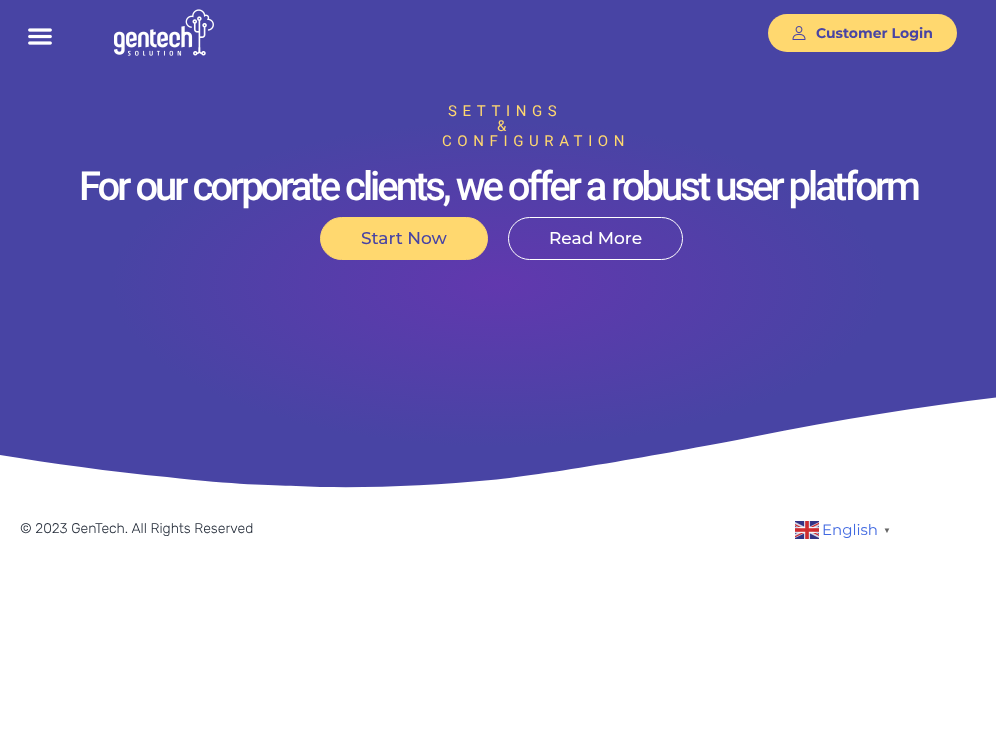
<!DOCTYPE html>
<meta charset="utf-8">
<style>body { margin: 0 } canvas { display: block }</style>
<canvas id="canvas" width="996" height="733"></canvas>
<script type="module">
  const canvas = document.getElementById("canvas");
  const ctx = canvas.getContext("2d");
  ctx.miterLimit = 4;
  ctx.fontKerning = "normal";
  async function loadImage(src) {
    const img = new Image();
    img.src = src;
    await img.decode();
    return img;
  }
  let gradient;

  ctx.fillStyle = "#ffffff";
  ctx.fillRect(0, 0, 996, 733);
  ctx.fillStyle = "#4844a4";
  ctx.fillRect(0, 0, 996, 75);
  ctx.drawImage(await loadImage("img1.png"), 28, 28, 24, 17);
  ctx.drawImage(await loadImage("img2.png"), 114, 9, 100, 47);
  ctx.fillStyle = "#ffd86f";
  ctx.beginPath();
  ctx.roundRect(768, 14, 189, 38, 19);
  ctx.fill();
  ctx.drawImage(await loadImage("img3.png"), 792, 26, 14, 14);
  ctx.font = "bold 14px Montserrat";
  ctx.fillStyle = "#4844a4";
  ctx.fillText("Customer Login", 816, 38);
  gradient = ctx.createRadialGradient(498, 675.46, 0, 498, 675.46, 704);
  gradient.addColorStop(0, "#6138ae");
  gradient.addColorStop(0.55, "#4844a4");
  ctx.fillStyle = gradient;
  ctx.beginPath();
  ctx.rect(0, 75, 996, 413);
  ctx.save();
  ctx.clip();
  ctx.scale(1, 296 / 704);
  ctx.fillRect(0, 0, 996, 1744);
  ctx.restore();
  ctx.letterSpacing = "5.6px";
  ctx.font = "15px Roboto";
  ctx.fillStyle = "#ffd86f";
  ctx.fillText("SETTINGS", 448, 116);
  ctx.fillText("&", 497, 131);
  ctx.fillText("CONFIGURATION", 442, 146);
  ctx.letterSpacing = "-3px";
  ctx.font = "500 40px Roboto";
  ctx.fillStyle = "#ffffff";
  ctx.fillText("For our corporate clients, we offer a robust user platform", 79, 200);
  ctx.fillStyle = "#ffd86f";
  ctx.beginPath();
  ctx.roundRect(320.5, 217.5, 167, 42, 21);
  ctx.fill();
  ctx.strokeStyle = "#ffd86f";
  ctx.stroke();
  ctx.letterSpacing = "0px";
  ctx.font = "500 17px Montserrat";
  ctx.fillStyle = "#4844a4";
  ctx.fillText("Start Now", 361, 244);
  ctx.beginPath();
  ctx.roundRect(508.5, 217.5, 174, 42, 21);
  ctx.strokeStyle = "#ffffff";
  ctx.stroke();
  ctx.fillStyle = "#ffffff";
  ctx.fillText("Read More", 549, 244);
  ctx.beginPath();
  ctx.moveTo(296, 486);
  ctx.bezierCurveTo(354, 489, 429, 486, 491, 480);
  ctx.bezierCurveTo(552, 474, 675, 452, 752, 437);
  ctx.bezierCurveTo(948, 398, 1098, 384, 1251, 377);
  ctx.bezierCurveTo(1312, 375, 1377, 373, 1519, 380);
  ctx.bezierCurveTo(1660, 388, 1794, 411, 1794, 411);
  ctx.lineTo(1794, 494);
  ctx.lineTo(-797, 494);
  ctx.lineTo(-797, 458);
  ctx.bezierCurveTo(-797, 458, -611, 419, -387, 421);
  ctx.bezierCurveTo(-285, 422, -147, 429, -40, 448);
  ctx.bezierCurveTo(15, 458, 95, 470, 167, 477);
  ctx.bezierCurveTo(237, 485, 269, 485, 296, 486);
  ctx.closePath();
  ctx.fill();
  ctx.font = "300 14px Rubik";
  ctx.fillStyle = "#232b38";
  ctx.fillText("© 2023 GenTech. All Rights Reserved", 20, 533);
  ctx.drawImage(await loadImage("img4.png"), 795, 521, 24, 18);
  ctx.font = "15px Montserrat";
  ctx.fillStyle = "#4169e1";
  ctx.fillText("English", 822, 535);
  ctx.font = "bold 8px Liberation Sans";
  ctx.fillStyle = "#666666";
  ctx.fillText("▼", 883, 533);
</script>
